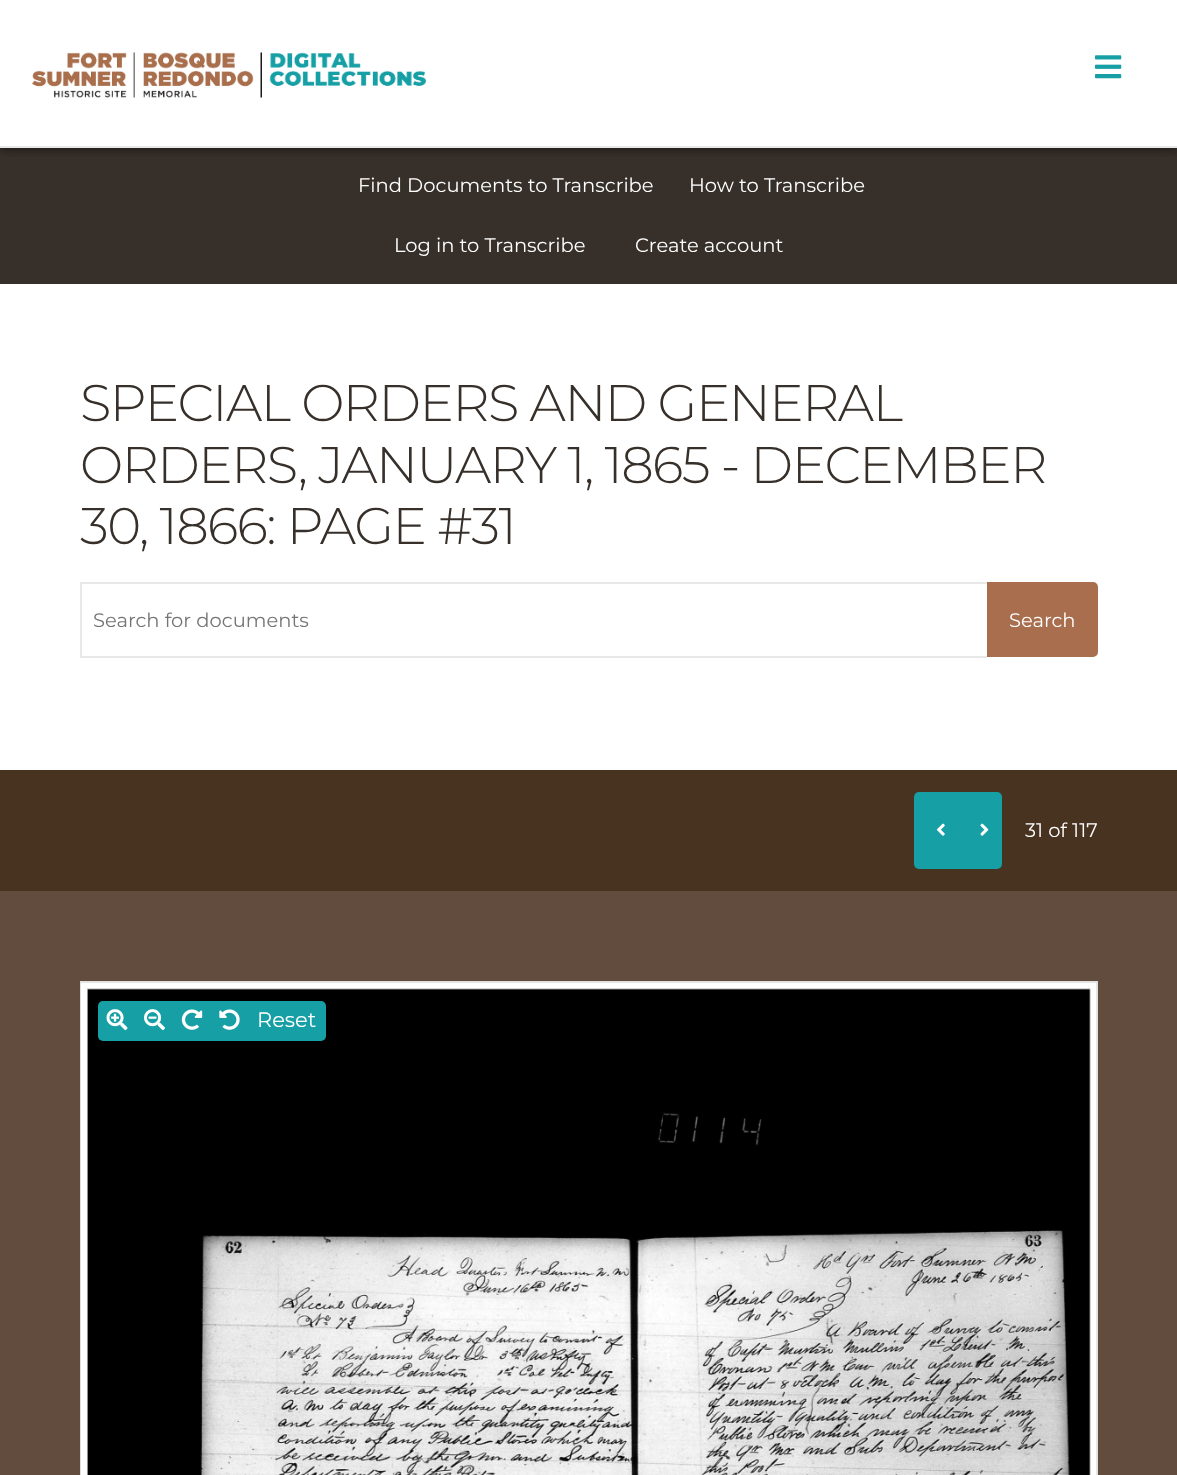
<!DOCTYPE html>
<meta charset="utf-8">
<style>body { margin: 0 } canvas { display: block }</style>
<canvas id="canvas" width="1177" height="1475"></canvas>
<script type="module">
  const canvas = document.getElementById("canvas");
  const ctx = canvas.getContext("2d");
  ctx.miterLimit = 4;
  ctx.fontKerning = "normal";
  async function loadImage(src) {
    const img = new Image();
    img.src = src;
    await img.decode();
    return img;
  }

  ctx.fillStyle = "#ffffff";
  ctx.fillRect(0, 0, 1177, 1475);
  ctx.fillStyle = "#37302a";
  ctx.fillRect(0, 148, 1177, 136);
  ctx.save();
  ctx.beginPath();
  ctx.rect(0, 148, 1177, 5);
  ctx.clip();
  ctx.fillStyle = "rgba(0, 0, 0, 0.2)";
  ctx.filter = "blur(3px)";
  ctx.beginPath();
  ctx.rect(2, 5, 1174, 144);
  ctx.fill();
  ctx.filter = "none";
  ctx.restore();
  ctx.save();
  ctx.beginPath();
  ctx.rect(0, 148, 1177, 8);
  ctx.clip();
  ctx.fillStyle = "rgba(0, 0, 0, 0.12)";
  ctx.filter = "blur(7.5px)";
  ctx.beginPath();
  ctx.rect(0, 2, 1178, 147);
  ctx.fill();
  ctx.filter = "none";
  ctx.restore();
  ctx.save();
  ctx.beginPath();
  ctx.rect(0, 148, 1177, 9);
  ctx.clip();
  ctx.fillStyle = "rgba(0, 0, 0, 0.14)";
  ctx.filter = "blur(4px)";
  ctx.beginPath();
  ctx.rect(0, 6, 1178, 147);
  ctx.fill();
  ctx.filter = "none";
  ctx.restore();
  ctx.fillStyle = "#e8e8e8";
  ctx.fillRect(0, 146, 1177, 2);
  ctx.drawImage(await loadImage("img1.png"), 31, 52, 223, 46);
  ctx.drawImage(await loadImage("img2.png"), 260, 52, 166, 46);
  ctx.drawImage(await loadImage("img3.png"), 1095, 55, 27, 24);
  ctx.font = "19.5px Montserrat";
  ctx.fillStyle = "#ffffff";
  ctx.fillText("Find Documents to Transcribe", 358, 192);
  ctx.fillText("How to Transcribe", 689, 192);
  ctx.fillText("Log in to Transcribe", 394, 252);
  ctx.fillText("Create account", 635, 252);
  ctx.letterSpacing = "-1.5px";
  ctx.font = "300 51.5px Montserrat";
  ctx.fillStyle = "#37302a";
  ctx.fillText("SPECIAL ORDERS AND GENERAL", 80, 421);
  ctx.fillText("ORDERS, JANUARY 1, 1865 - DECEMBER", 80, 483);
  ctx.fillText("30, 1866: PAGE #31", 80, 544);
  ctx.fillStyle = "#e8e8e8";
  ctx.fillRect(80, 582, 907, 2);
  ctx.fillRect(80, 656, 907, 2);
  ctx.fillRect(80, 582, 2, 75);
  ctx.letterSpacing = "0px";
  ctx.font = "19.5px Montserrat";
  ctx.fillStyle = "#757575";
  ctx.fillText("Search for documents", 93, 627);
  ctx.fillStyle = "#a86e4e";
  ctx.beginPath();
  ctx.roundRect(987, 582, 111, 75, [0, 5, 5, 0]);
  ctx.fill();
  ctx.fillStyle = "#ffffff";
  ctx.fillText("Search", 1009, 627);
  ctx.fillStyle = "#483321";
  ctx.fillRect(0, 770, 1177, 121);
  ctx.fillStyle = "#179fa6";
  ctx.beginPath();
  ctx.roundRect(914, 792, 45, 77, [5, 0, 0, 5]);
  ctx.fill();
  ctx.drawImage(await loadImage("img4.png"), 937, 823, 8, 13);
  ctx.beginPath();
  ctx.roundRect(957, 792, 45, 77, [0, 5, 5, 0]);
  ctx.fill();
  ctx.drawImage(await loadImage("img5.png"), 980, 823, 9, 13);
  ctx.fillStyle = "#ffffff";
  ctx.fillText("31 of 117", 1025, 837);
  ctx.fillStyle = "#624c3e";
  ctx.fillRect(0, 891, 1177, 584);
  ctx.strokeStyle = "#dfdfdf";
  ctx.lineWidth = 2;
  ctx.strokeRect(81, 982, 1016, 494);
  ctx.drawImage(await loadImage("img6.png"), 81, 982, 1016, 493);
  ctx.fillStyle = "#179fa6";
  ctx.beginPath();
  ctx.roundRect(98, 1001, 39, 40, [5, 0, 0, 5]);
  ctx.fill();
  ctx.drawImage(await loadImage("img7.png"), 106, 1009, 22, 22);
  ctx.fillRect(137, 1001, 111, 40);
  ctx.drawImage(await loadImage("img8.png"), 144, 1009, 21, 22);
  ctx.drawImage(await loadImage("img9.png"), 181, 1009, 22, 21);
  ctx.drawImage(await loadImage("img10.png"), 219, 1009, 21, 21);
  ctx.beginPath();
  ctx.roundRect(248, 1001, 78, 40, [0, 5, 5, 0]);
  ctx.fill();
  ctx.font = "21px Montserrat";
  ctx.fillStyle = "#ffffff";
  ctx.fillText("Reset", 257, 1027);
</script>
